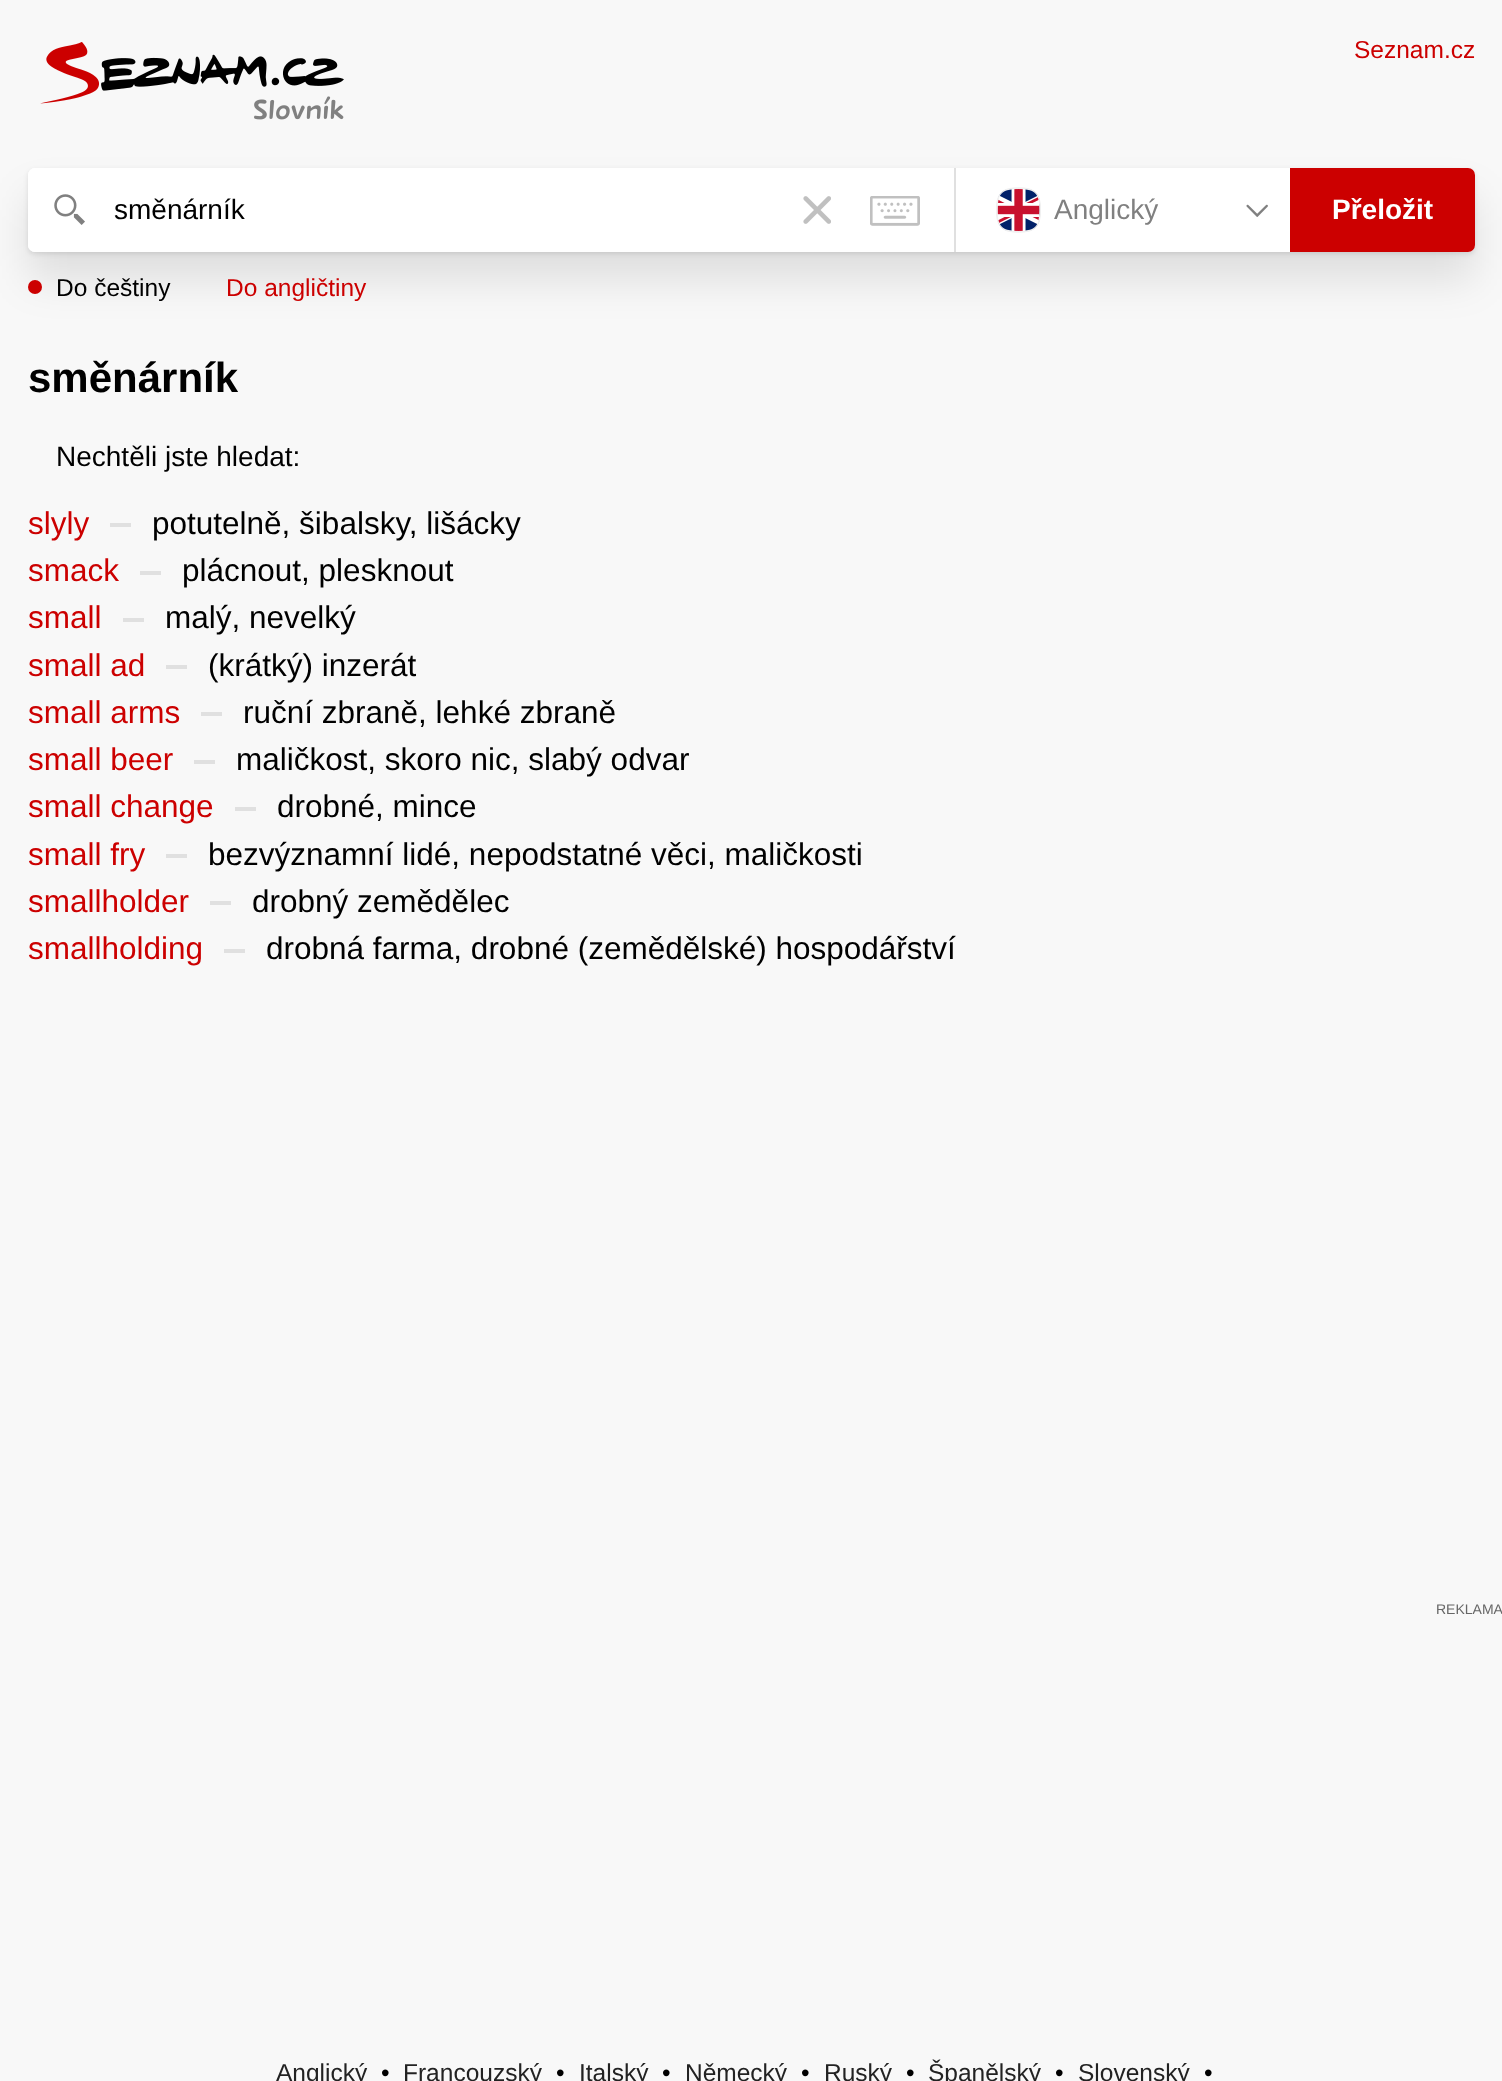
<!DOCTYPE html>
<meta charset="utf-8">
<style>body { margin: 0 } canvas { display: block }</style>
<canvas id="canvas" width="1502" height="2081"></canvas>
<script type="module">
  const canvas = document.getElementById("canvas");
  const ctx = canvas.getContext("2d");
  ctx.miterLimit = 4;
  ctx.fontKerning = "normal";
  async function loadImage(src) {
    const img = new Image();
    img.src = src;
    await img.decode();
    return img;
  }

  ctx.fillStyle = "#f8f8f8";
  ctx.fillRect(0, 0, 1502, 2081);
  ctx.drawImage(await loadImage("img1.png"), 40, 42, 304, 78);
  ctx.font = "24.5px Liberation Sans";
  ctx.fillStyle = "#cc0000";
  ctx.fillText("Seznam.cz", 1354, 58);
  ctx.fillStyle = "rgba(0, 0, 0, 0.1)";
  ctx.filter = "blur(2.5px)";
  ctx.beginPath();
  ctx.roundRect(28, 170, 1447, 84, 7);
  ctx.fill();
  ctx.filter = "none";
  ctx.filter = "blur(21px)";
  ctx.beginPath();
  ctx.roundRect(28, 196, 1447, 84, 7);
  ctx.fill();
  ctx.filter = "none";
  ctx.fillStyle = "#ffffff";
  ctx.beginPath();
  ctx.roundRect(28, 168, 1447, 84, 7);
  ctx.fill();
  ctx.beginPath();
  ctx.roundRect(28, 168, 84, 84, 7);
  ctx.fill();
  ctx.drawImage(await loadImage("img2.png"), 54, 194, 31, 31);
  ctx.font = "28px Liberation Sans";
  ctx.fillStyle = "#000000";
  ctx.fillText("směnárník", 114, 219);
  ctx.drawImage(await loadImage("img3.png"), 803, 196, 28, 28);
  ctx.drawImage(await loadImage("img4.png"), 870, 196, 50, 30);
  ctx.fillStyle = "#e0e0e0";
  ctx.fillRect(954, 168, 2, 84);
  ctx.drawImage(await loadImage("img5.png"), 996, 187, 45, 46);
  ctx.fillStyle = "#808080";
  ctx.fillText("Anglický", 1054, 219);
  ctx.drawImage(await loadImage("img6.png"), 1246, 204, 22, 13);
  ctx.fillStyle = "#cc0000";
  ctx.beginPath();
  ctx.roundRect(1290, 168, 185, 84, [0, 7, 7, 0]);
  ctx.fill();
  ctx.font = "bold 28px Liberation Sans";
  ctx.fillStyle = "#ffffff";
  ctx.fillText("Přeložit", 1332, 219);
  ctx.fillStyle = "#cc0000";
  ctx.beginPath();
  ctx.arc(35, 287, 7, 0, Math.PI * 2);
  ctx.fill();
  ctx.font = "24.5px Liberation Sans";
  ctx.fillStyle = "#000000";
  ctx.fillText("Do češtiny", 56, 296);
  ctx.fillStyle = "#cc0000";
  ctx.fillText("Do angličtiny", 226, 296);
  ctx.font = "bold 42px Liberation Sans";
  ctx.fillStyle = "#000000";
  ctx.fillText("směnárník", 28, 392);
  ctx.font = "28px Liberation Sans";
  ctx.fillText("Nechtěli jste hledat:", 56, 466);
  ctx.font = "31.5px Liberation Sans";
  ctx.fillStyle = "#cc0000";
  ctx.fillText("slyly", 28, 534);
  ctx.fillStyle = "#e0e0e0";
  ctx.fillRect(110, 523, 21, 4);
  ctx.fillStyle = "#000000";
  ctx.fillText("potutelně, šibalsky, lišácky", 152, 534);
  ctx.fillStyle = "#cc0000";
  ctx.fillText("smack", 28, 581);
  ctx.fillStyle = "#e0e0e0";
  ctx.fillRect(140, 571, 21, 4);
  ctx.fillStyle = "#000000";
  ctx.fillText("plácnout, plesknout", 182, 581);
  ctx.fillStyle = "#cc0000";
  ctx.fillText("small", 28, 628);
  ctx.fillStyle = "#e0e0e0";
  ctx.fillRect(123, 618, 21, 4);
  ctx.fillStyle = "#000000";
  ctx.fillText("malý, nevelký", 165, 628);
  ctx.fillStyle = "#cc0000";
  ctx.fillText("small ad", 28, 676);
  ctx.fillStyle = "#e0e0e0";
  ctx.fillRect(166, 665, 21, 4);
  ctx.fillStyle = "#000000";
  ctx.fillText("(krátký) inzerát", 208, 676);
  ctx.fillStyle = "#cc0000";
  ctx.fillText("small arms", 28, 723);
  ctx.fillStyle = "#e0e0e0";
  ctx.fillRect(201, 712, 21, 4);
  ctx.fillStyle = "#000000";
  ctx.fillText("ruční zbraně, lehké zbraně", 243, 723);
  ctx.fillStyle = "#cc0000";
  ctx.fillText("small beer", 28, 770);
  ctx.fillStyle = "#e0e0e0";
  ctx.fillRect(194, 760, 21, 4);
  ctx.fillStyle = "#000000";
  ctx.fillText("maličkost, skoro nic, slabý odvar", 236, 770);
  ctx.fillStyle = "#cc0000";
  ctx.fillText("small change", 28, 817);
  ctx.fillStyle = "#e0e0e0";
  ctx.fillRect(235, 807, 21, 4);
  ctx.fillStyle = "#000000";
  ctx.fillText("drobné, mince", 277, 817);
  ctx.fillStyle = "#cc0000";
  ctx.fillText("small fry", 28, 865);
  ctx.fillStyle = "#e0e0e0";
  ctx.fillRect(166, 854, 21, 4);
  ctx.fillStyle = "#000000";
  ctx.fillText("bezvýznamní lidé, nepodstatné věci, maličkosti", 208, 865);
  ctx.fillStyle = "#cc0000";
  ctx.fillText("smallholder", 28, 912);
  ctx.fillStyle = "#e0e0e0";
  ctx.fillRect(210, 901, 21, 4);
  ctx.fillStyle = "#000000";
  ctx.fillText("drobný zemědělec", 252, 912);
  ctx.fillStyle = "#cc0000";
  ctx.fillText("smallholding", 28, 959);
  ctx.fillStyle = "#e0e0e0";
  ctx.fillRect(224, 949, 21, 4);
  ctx.fillStyle = "#000000";
  ctx.fillText("drobná farma, drobné (zemědělské) hospodářství", 266, 959);
  ctx.font = "14px Liberation Sans";
  ctx.fillStyle = "#666666";
  ctx.fillText("REKLAMA", 1436, 1614);
  ctx.font = "24.5px Liberation Sans";
  ctx.fillStyle = "#222222";
  ctx.fillText("Anglický", 276, 2081);
  ctx.fillStyle = "#000000";
  ctx.fillText("•", 381, 2081);
  ctx.fillStyle = "#222222";
  ctx.fillText("Francouzský", 403, 2081);
  ctx.fillStyle = "#000000";
  ctx.fillText("•", 556, 2081);
  ctx.fillStyle = "#222222";
  ctx.fillText("Italský", 579, 2081);
  ctx.fillStyle = "#000000";
  ctx.fillText("•", 662, 2081);
  ctx.fillStyle = "#222222";
  ctx.fillText("Německý", 685, 2081);
  ctx.fillStyle = "#000000";
  ctx.fillText("•", 801, 2081);
  ctx.fillStyle = "#222222";
  ctx.fillText("Ruský", 824, 2081);
  ctx.fillStyle = "#000000";
  ctx.fillText("•", 906, 2081);
  ctx.fillStyle = "#222222";
  ctx.fillText("Španělský", 928, 2081);
  ctx.fillStyle = "#000000";
  ctx.fillText("•", 1055, 2081);
  ctx.fillStyle = "#222222";
  ctx.fillText("Slovenský", 1078, 2081);
  ctx.fillStyle = "#000000";
  ctx.fillText("•", 1204, 2081);
</script>
